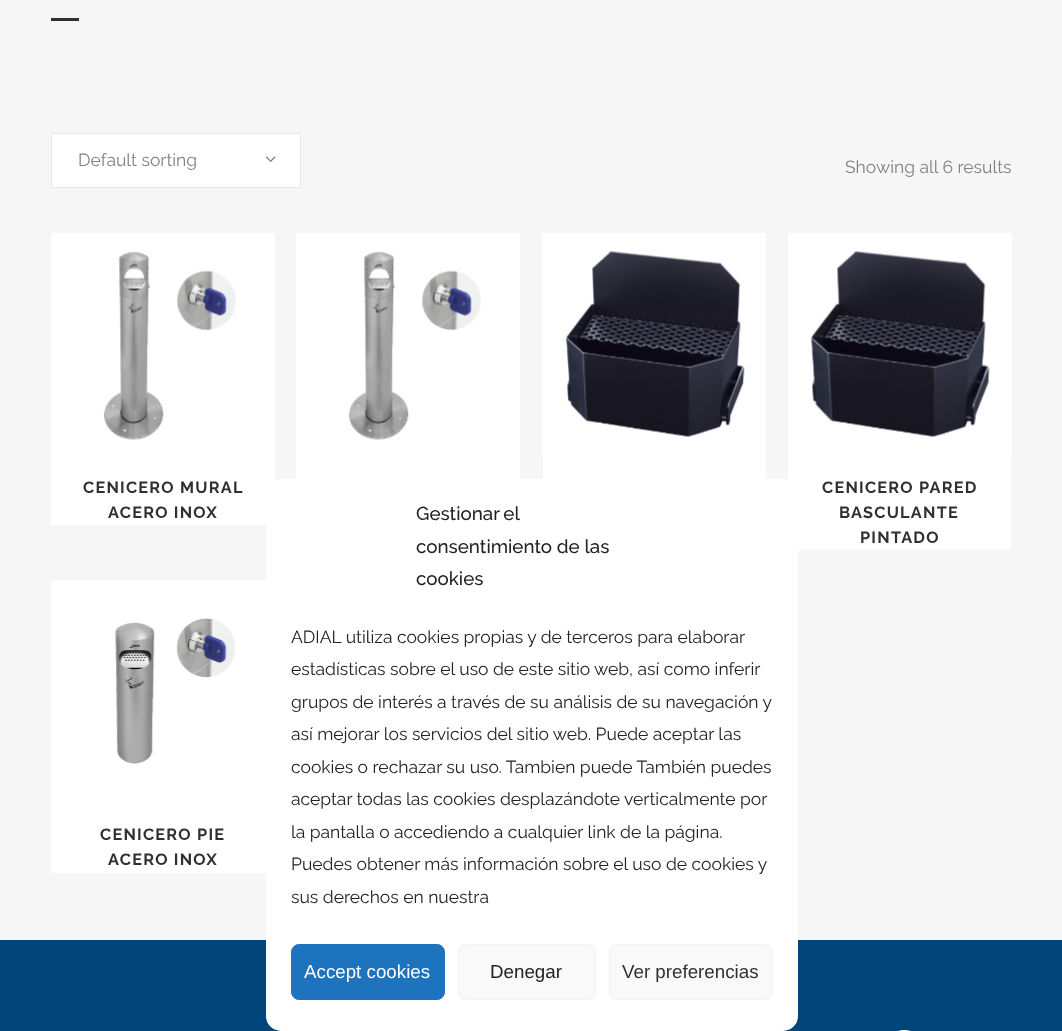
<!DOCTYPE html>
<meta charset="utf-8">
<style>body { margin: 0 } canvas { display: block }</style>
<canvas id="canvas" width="1062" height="1031"></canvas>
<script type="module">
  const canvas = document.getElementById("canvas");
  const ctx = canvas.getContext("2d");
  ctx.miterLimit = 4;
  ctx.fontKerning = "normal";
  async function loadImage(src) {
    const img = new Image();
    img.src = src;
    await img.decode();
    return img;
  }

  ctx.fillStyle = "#f6f6f6";
  ctx.fillRect(0, 0, 1062, 1031);
  ctx.fillStyle = "#303030";
  ctx.fillRect(51, 18, 28, 3);
  ctx.fillStyle = "#ffffff";
  ctx.beginPath();
  ctx.rect(51.5, 133.5, 249, 54);
  ctx.fill();
  ctx.strokeStyle = "#e6e6e6";
  ctx.stroke();
  ctx.font = "17.5px Raleway";
  ctx.fillStyle = "#818181";
  ctx.fillText("Default sorting", 78, 166);
  ctx.drawImage(await loadImage("img1.png"), 265, 156, 11, 6);
  ctx.fillText("Showing all 6 results", 845, 173);
  ctx.fillStyle = "#ffffff";
  ctx.fillRect(296, 233, 224, 246);
  ctx.drawImage(await loadImage("img2.png"), 348, 251, 133, 189);
  ctx.fillRect(543, 233, 223, 246);
  ctx.drawImage(await loadImage("img3.png"), 542, 233, 203, 224);
  ctx.fillRect(51, 233, 224, 292);
  ctx.drawImage(await loadImage("img2.png"), 103, 251, 133, 189);
  ctx.letterSpacing = "1.25px";
  ctx.font = "bold 16.25px Raleway";
  ctx.fillStyle = "#303030";
  ctx.fillText("CENICERO MURAL", 83, 493);
  ctx.fillText("ACERO INOX", 108, 518);
  ctx.fillStyle = "#ffffff";
  ctx.fillRect(788, 233, 223, 317);
  ctx.drawImage(await loadImage("img4.png"), 810, 233, 202, 224);
  ctx.fillStyle = "#303030";
  ctx.fillText("CENICERO PARED", 822, 493);
  ctx.fillText("BASCULANTE", 839, 518);
  ctx.fillText("PINTADO", 860, 543);
  ctx.fillStyle = "#ffffff";
  ctx.fillRect(51, 580, 215, 293);
  ctx.drawImage(await loadImage("img5.png"), 115, 618, 121, 146);
  ctx.fillStyle = "#303030";
  ctx.fillText("CENICERO PIE", 100, 840);
  ctx.fillText("ACERO INOX", 108, 865);
  ctx.fillStyle = "#004479";
  ctx.fillRect(0, 940, 1062, 91);
  ctx.drawImage(await loadImage("img6.png"), 897, 1030, 15, 1);
  ctx.fillStyle = "#ffffff";
  ctx.beginPath();
  ctx.roundRect(266, 479, 532, 552, 15);
  ctx.fill();
  ctx.letterSpacing = "0px";
  ctx.wordSpacing = "-1px";
  ctx.font = "500 18.75px Raleway";
  ctx.fillStyle = "#222222";
  ctx.fillText("Gestionar el", 416, 520);
  ctx.wordSpacing = "0px";
  ctx.fillText("consentimiento de las", 416, 553);
  ctx.fillText("cookies", 416, 585);
  ctx.font = "17.5px Raleway";
  ctx.fillText("ADIAL utiliza cookies propias y de terceros para elaborar", 291, 643);
  ctx.fillText("estadísticas sobre el uso de este sitio web, así como inferir", 291, 675);
  ctx.fillText("grupos de interés a través de su análisis de su navegación y", 291, 708);
  ctx.fillText("así mejorar los servicios del sitio web. Puede aceptar las", 291, 740);
  ctx.fillText("cookies o rechazar su uso. Tambien puede También puedes", 291, 773);
  ctx.fillText("aceptar todas las cookies desplazándote verticalmente por", 291, 805);
  ctx.fillText("la pantalla o accediendo a cualquier link de la página.", 291, 838);
  ctx.fillText("Puedes obtener más información sobre el uso de cookies y", 291, 870);
  ctx.fillText("sus derechos en nuestra", 291, 903);
  ctx.fillStyle = "#1e73be";
  ctx.beginPath();
  ctx.roundRect(291.5, 944.5, 153, 55, 7.5);
  ctx.fill();
  ctx.strokeStyle = "#1e73be";
  ctx.stroke();
  ctx.font = "18.75px Liberation Sans";
  ctx.fillStyle = "#ffffff";
  ctx.fillText("Accept cookies", 304, 978);
  ctx.fillStyle = "#f9f9f9";
  ctx.beginPath();
  ctx.roundRect(458.5, 944.5, 137, 55, 7.5);
  ctx.fill();
  ctx.strokeStyle = "#f2f2f2";
  ctx.stroke();
  ctx.fillStyle = "#222222";
  ctx.fillText("Denegar", 490, 978);
  ctx.fillStyle = "#f9f9f9";
  ctx.beginPath();
  ctx.roundRect(609.5, 944.5, 163, 55, 7.5);
  ctx.fill();
  ctx.stroke();
  ctx.fillStyle = "#303030";
  ctx.fillText("Ver preferencias", 622, 978);
</script>
